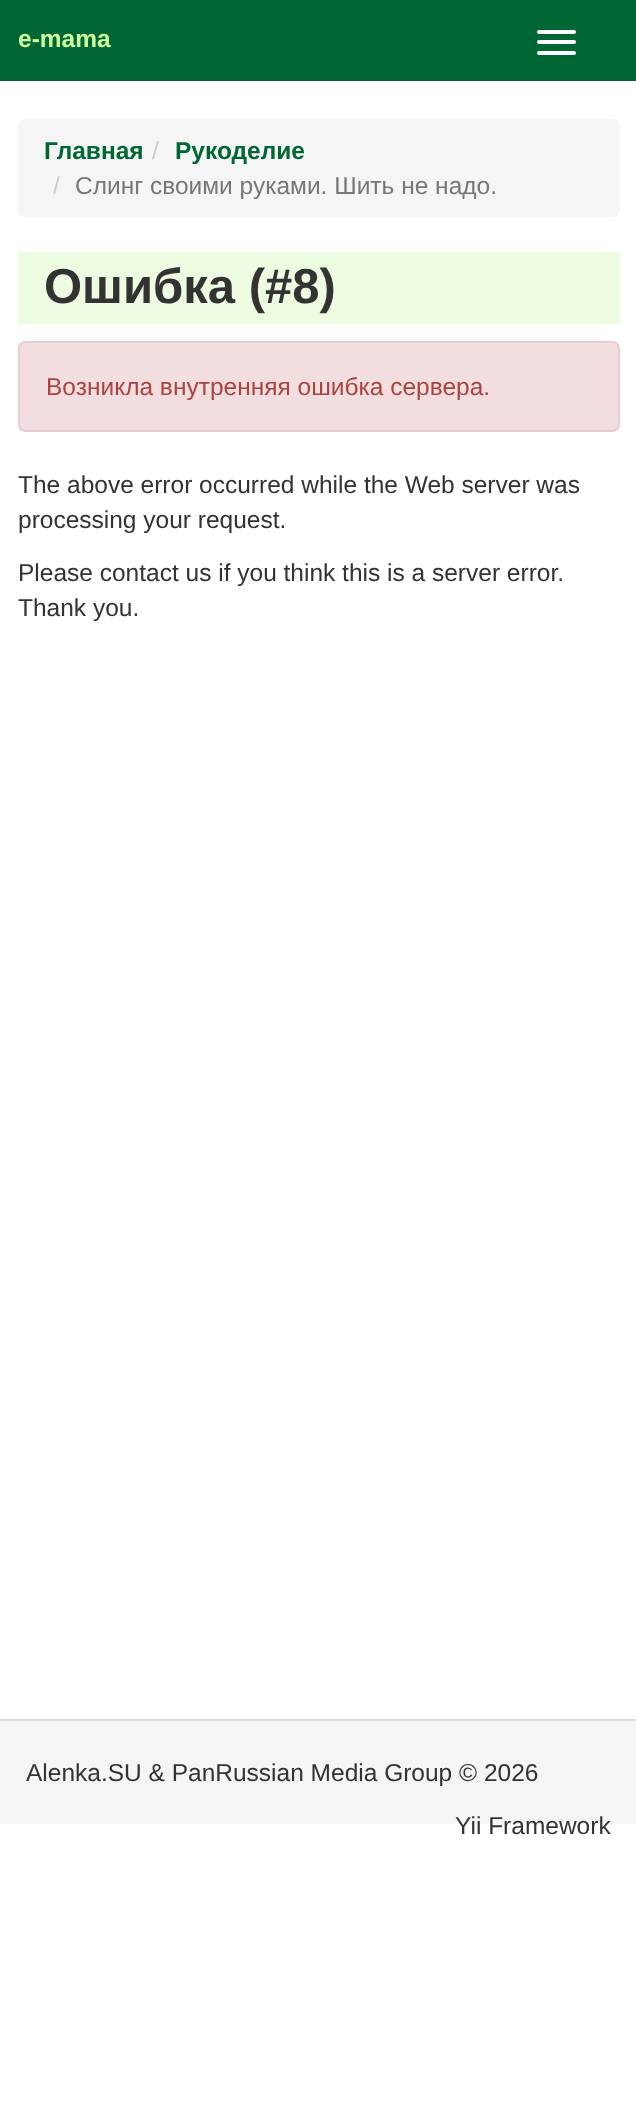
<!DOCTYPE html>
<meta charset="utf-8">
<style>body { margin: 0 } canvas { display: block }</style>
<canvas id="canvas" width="636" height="2106"></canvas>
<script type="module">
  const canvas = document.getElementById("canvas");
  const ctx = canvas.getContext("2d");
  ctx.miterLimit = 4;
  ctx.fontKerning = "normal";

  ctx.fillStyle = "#ffffff";
  ctx.fillRect(0, 0, 636, 2106);
  ctx.fillStyle = "#006633";
  ctx.fillRect(0, 0, 636, 81);
  ctx.font = "bold 24.5px Liberation Sans";
  ctx.fillStyle = "#cdffa1";
  ctx.fillText("e-mama", 18, 47);
  ctx.fillStyle = "#ffffff";
  ctx.beginPath();
  ctx.roundRect(537, 30, 39, 4, 2);
  ctx.fill();
  ctx.beginPath();
  ctx.roundRect(537, 40, 39, 4, 2);
  ctx.fill();
  ctx.beginPath();
  ctx.roundRect(537, 51, 39, 4, 2);
  ctx.fill();
  ctx.fillStyle = "#f5f5f5";
  ctx.beginPath();
  ctx.roundRect(18, 119, 602, 98, 7);
  ctx.fill();
  ctx.fillStyle = "#006633";
  ctx.fillText("Главная", 44, 159);
  ctx.font = "24.5px Liberation Sans";
  ctx.fillStyle = "#cccccc";
  ctx.fillText("/", 152, 159);
  ctx.font = "bold 24.5px Liberation Sans";
  ctx.fillStyle = "#006633";
  ctx.fillText("Рукоделие", 175, 159);
  ctx.font = "24.5px Liberation Sans";
  ctx.fillStyle = "#cccccc";
  ctx.fillText("/", 53, 194);
  ctx.fillStyle = "#777777";
  ctx.fillText("Слинг своими руками. Шить не надо.", 75, 194);
  ctx.fillStyle = "#edfce1";
  ctx.fillRect(18, 252, 602, 72);
  ctx.font = "bold 49px Liberation Sans";
  ctx.fillStyle = "#333333";
  ctx.fillText("Ошибка (#8)", 44, 303);
  ctx.fillStyle = "#f2dede";
  ctx.beginPath();
  ctx.roundRect(19, 342, 600, 89, 6);
  ctx.fill();
  ctx.strokeStyle = "#ebccd1";
  ctx.lineWidth = 2;
  ctx.stroke();
  ctx.font = "24.5px Liberation Sans";
  ctx.fillStyle = "#a94442";
  ctx.fillText("Возникла внутренняя ошибка сервера.", 46, 395);
  ctx.fillStyle = "#333333";
  ctx.fillText("The above error occurred while the Web server was", 18, 493);
  ctx.fillText("processing your request.", 18, 528);
  ctx.fillText("Please contact us if you think this is a server error.", 18, 581);
  ctx.fillText("Thank you.", 18, 616);
  ctx.fillStyle = "#f5f5f5";
  ctx.fillRect(0, 1721, 636, 103);
  ctx.fillStyle = "#dddddd";
  ctx.fillRect(0, 1719, 636, 2);
  ctx.fillStyle = "#333333";
  ctx.fillText("Alenka.SU & PanRussian Media Group © 2026", 26, 1781);
  ctx.fillText("Yii Framework", 455, 1834);
</script>
